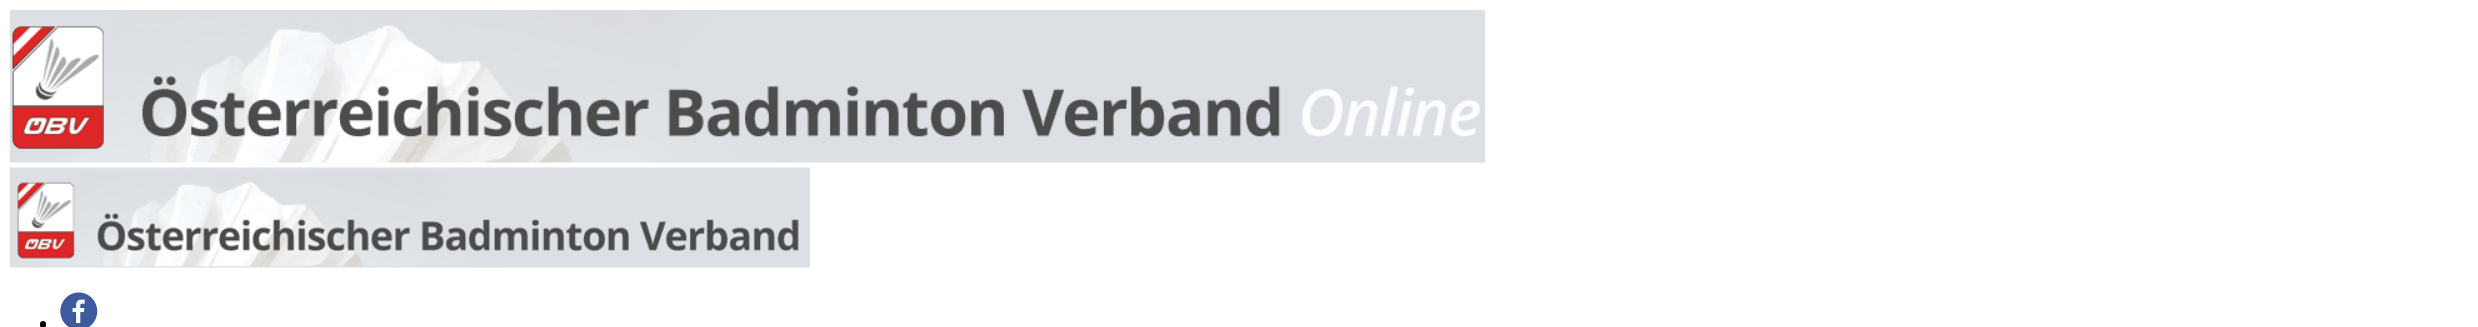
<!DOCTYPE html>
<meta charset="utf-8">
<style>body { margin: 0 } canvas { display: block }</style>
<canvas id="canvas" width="2478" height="327"></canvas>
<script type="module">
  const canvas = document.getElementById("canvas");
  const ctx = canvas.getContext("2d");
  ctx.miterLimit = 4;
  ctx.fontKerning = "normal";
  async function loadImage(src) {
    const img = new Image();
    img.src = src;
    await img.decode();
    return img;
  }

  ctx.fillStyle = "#ffffff";
  ctx.fillRect(0, 0, 2478, 327);
  ctx.drawImage(await loadImage("img1.png"), 10, 10, 1475, 153);
  ctx.drawImage(await loadImage("img2.png"), 10, 167, 800, 101);
  ctx.fillStyle = "#000000";
  ctx.beginPath();
  ctx.roundRect(40, 321, 6, 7, 3);
  ctx.fill();
  ctx.drawImage(await loadImage("img3.png"), 60, 292, 38, 35);
</script>
